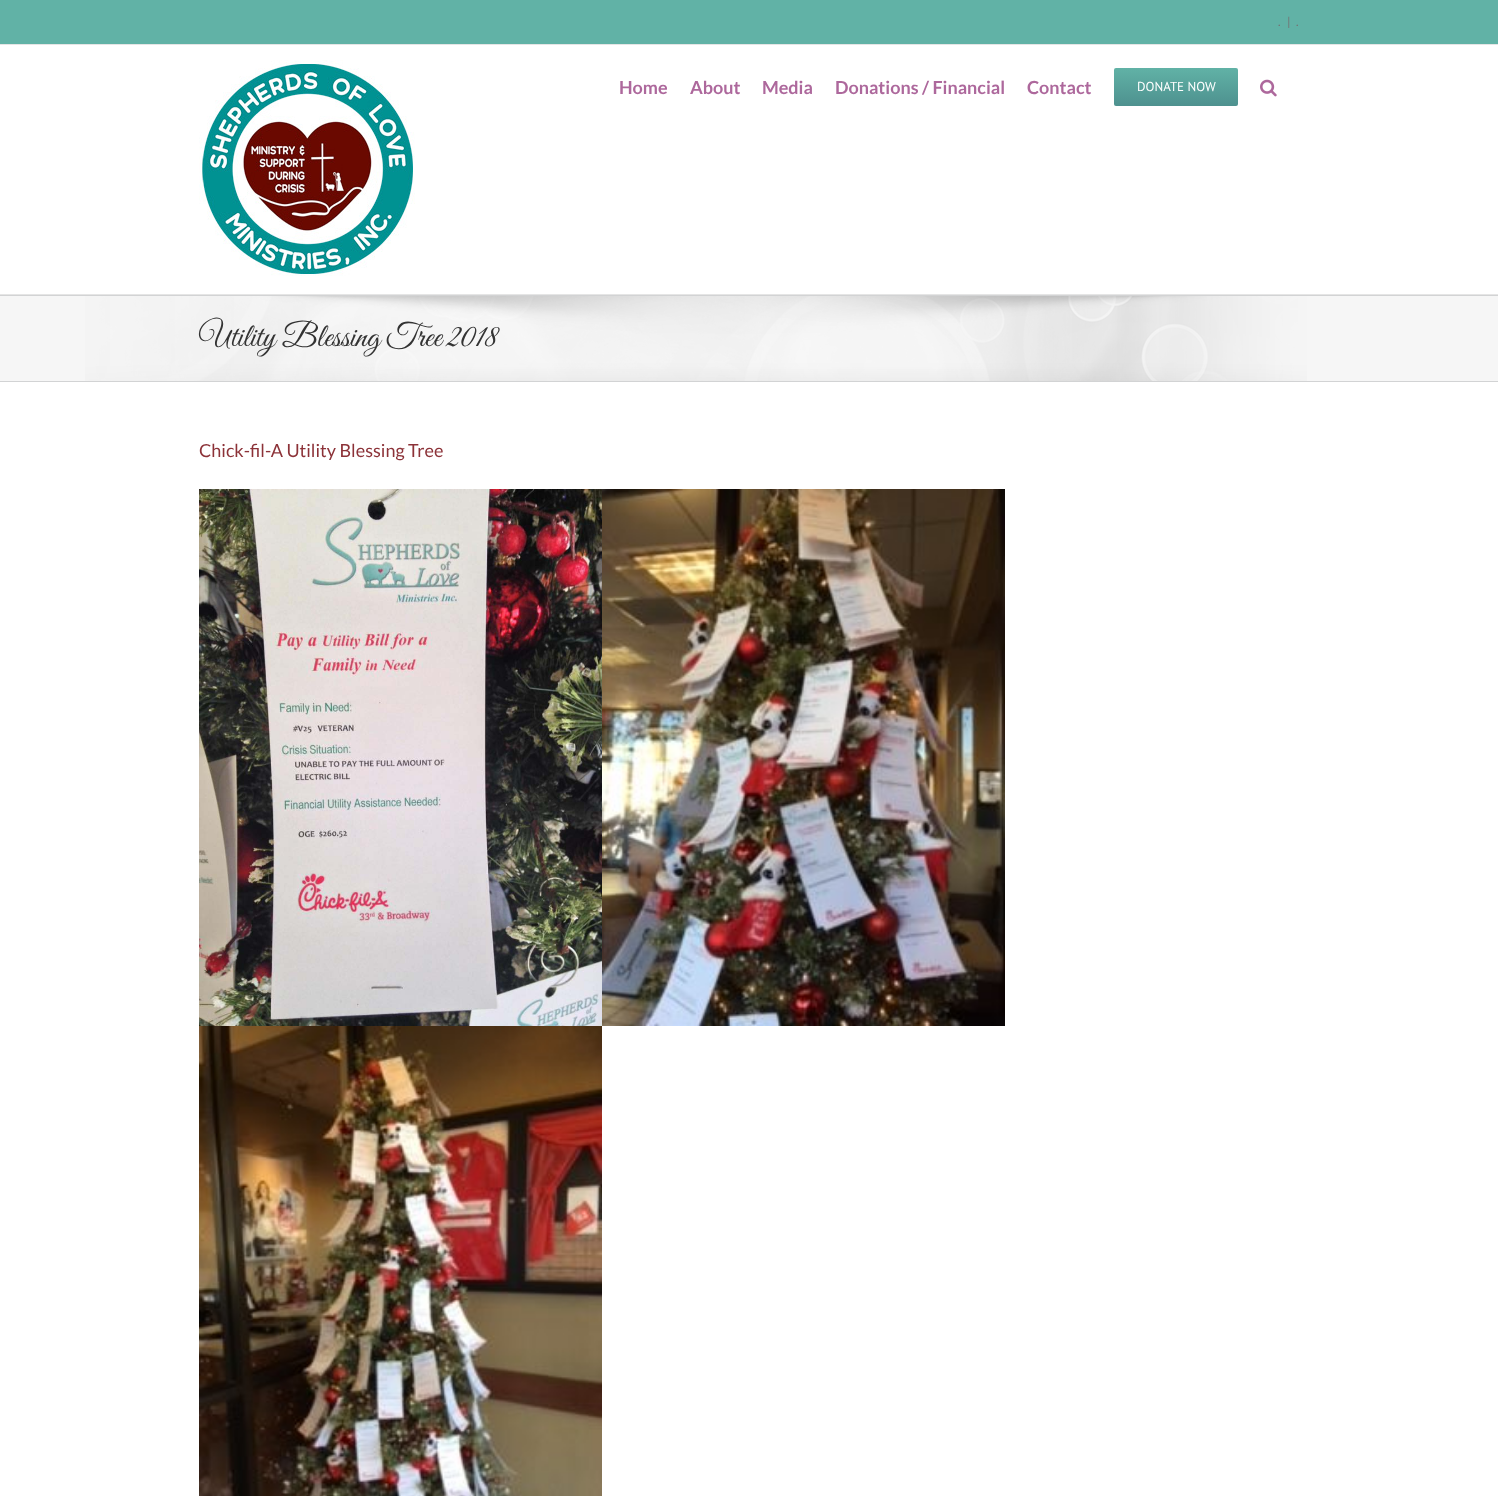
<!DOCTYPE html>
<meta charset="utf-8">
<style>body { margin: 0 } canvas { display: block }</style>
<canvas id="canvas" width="1498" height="1496"></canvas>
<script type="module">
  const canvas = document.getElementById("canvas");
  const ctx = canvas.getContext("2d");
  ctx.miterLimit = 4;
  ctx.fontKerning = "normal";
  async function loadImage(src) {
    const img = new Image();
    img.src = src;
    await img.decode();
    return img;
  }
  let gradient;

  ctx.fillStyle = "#ffffff";
  ctx.fillRect(0, 0, 1498, 1496);
  ctx.fillStyle = "#61b2a6";
  ctx.fillRect(0, 0, 1498, 44);
  ctx.fillStyle = "#e5e5e5";
  ctx.fillRect(0, 44, 1498, 1);
  ctx.font = "12px Lato";
  ctx.fillStyle = "#747474";
  ctx.fillText(".", 1278, 26);
  ctx.fillText("|", 1287, 26);
  ctx.fillText(".", 1296, 26);
  ctx.fillStyle = "#e5e5e5";
  ctx.fillRect(0, 294, 1498, 1);
  ctx.drawImage(await loadImage("img1.png"), 199, 60, 216, 216);
  ctx.font = "bold 18px Lato";
  ctx.fillStyle = "#ad689c";
  ctx.fillText("Home", 619, 94);
  ctx.fillText("About", 690, 94);
  ctx.fillText("Media", 762, 94);
  ctx.fillText("Donations / Financial", 835, 94);
  ctx.fillText("Contact", 1027, 94);
  gradient = ctx.createLinearGradient(1176, 68, 1176, 106);
  gradient.addColorStop(0, "#61b2a6");
  gradient.addColorStop(1, "#4e918f");
  ctx.fillStyle = gradient;
  ctx.beginPath();
  ctx.roundRect(1114, 68, 124, 38, 2);
  ctx.fill();
  ctx.font = "13px PT Sans";
  ctx.fillStyle = "#ffffff";
  ctx.fillText("DONATE NOW", 1137, 91);
  ctx.drawImage(await loadImage("img2.png"), 1260, 79, 17, 18);
  ctx.fillStyle = "#f6f6f6";
  ctx.fillRect(0, 296, 1498, 85);
  ctx.drawImage(await loadImage("img3.png"), 85, 296, 1222, 85);
  ctx.fillStyle = "#d2d3d4";
  ctx.fillRect(0, 295, 1498, 1);
  ctx.fillRect(0, 381, 1498, 1);
  ctx.font = "33px Great Vibes";
  ctx.fillStyle = "#333333";
  ctx.fillText("Utility Blessing Tree 2018", 199, 346);
  ctx.font = "18px Lato";
  ctx.fillStyle = "#8c3238";
  ctx.fillText("Chick-fil-A Utility Blessing Tree", 199, 457);
  ctx.drawImage(await loadImage("img4.png"), 199, 489, 403, 537);
  ctx.drawImage(await loadImage("img5.png"), 602, 489, 403, 537);
  ctx.drawImage(await loadImage("img6.png"), 199, 1026, 403, 470);
</script>
